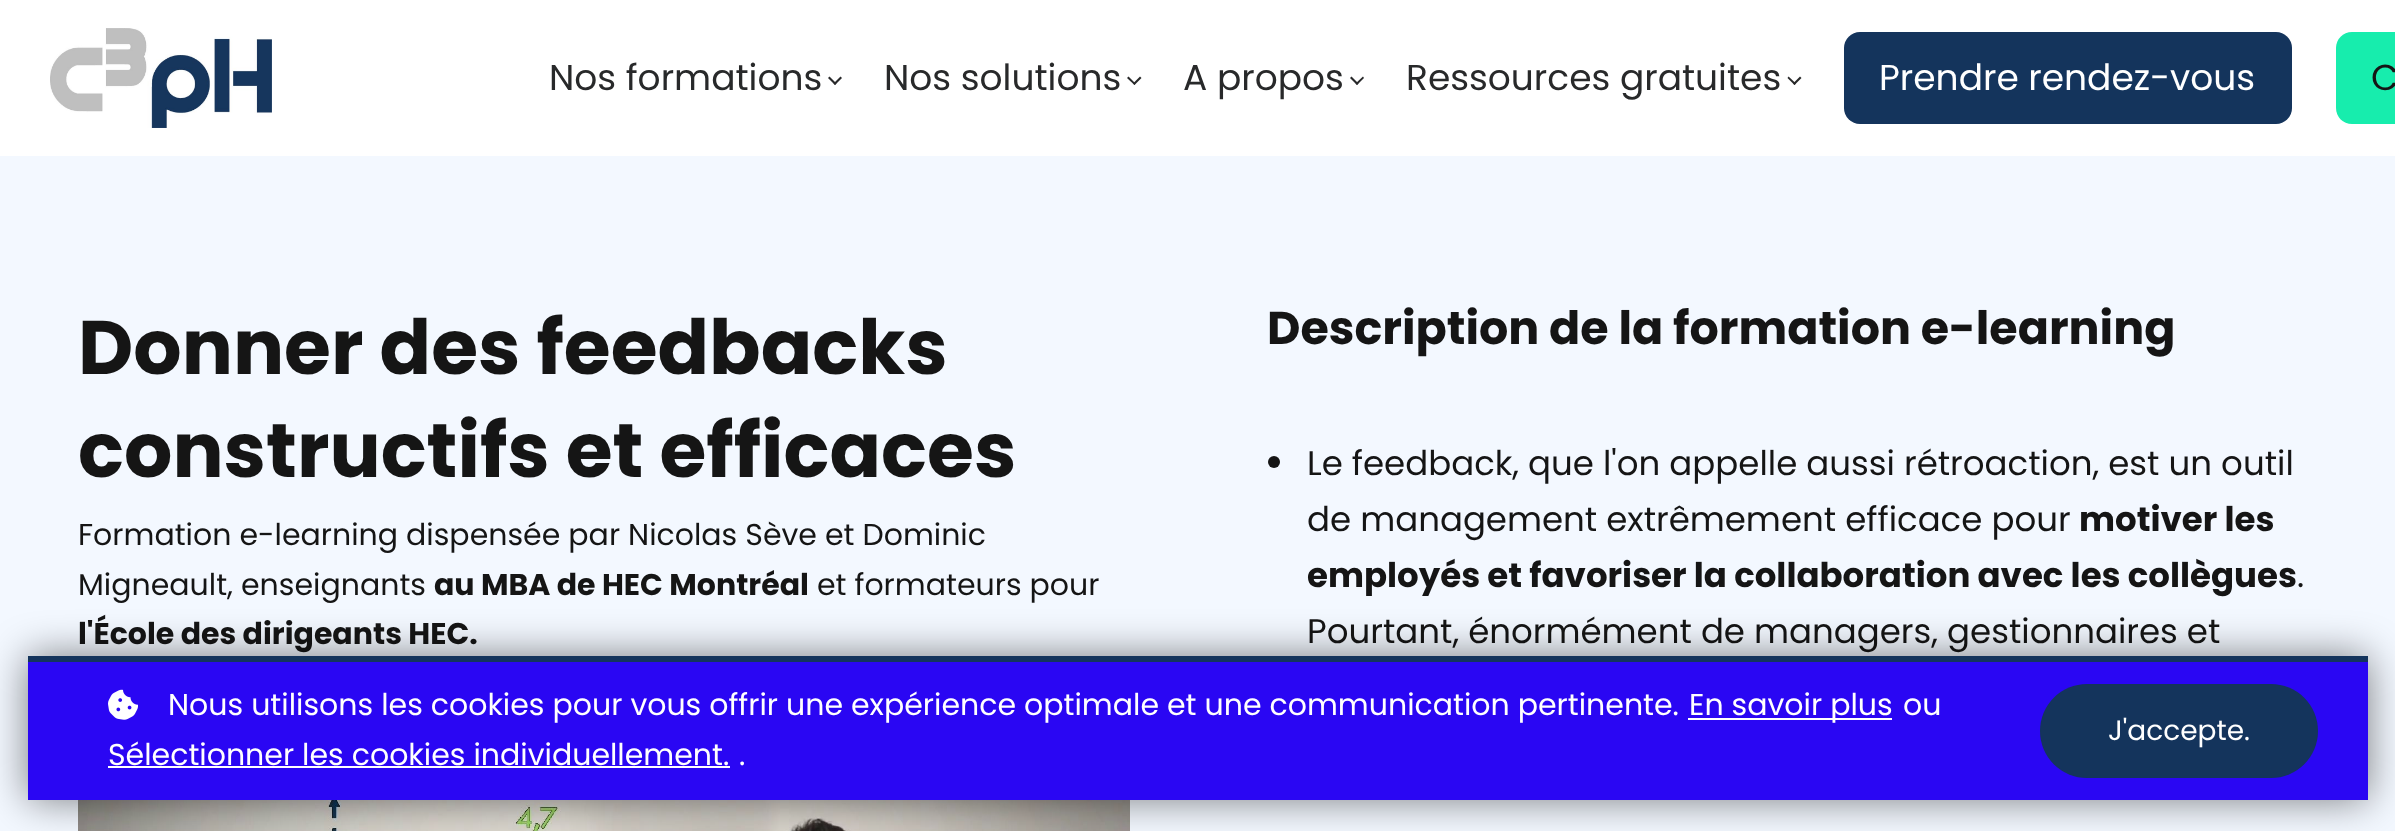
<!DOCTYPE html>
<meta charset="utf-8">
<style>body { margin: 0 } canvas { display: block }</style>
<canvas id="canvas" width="2395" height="831"></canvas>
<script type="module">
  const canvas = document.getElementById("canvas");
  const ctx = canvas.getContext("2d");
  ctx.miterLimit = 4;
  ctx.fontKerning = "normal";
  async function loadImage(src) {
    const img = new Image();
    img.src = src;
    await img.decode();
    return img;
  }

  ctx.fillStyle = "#ffffff";
  ctx.fillRect(0, 0, 2395, 831);
  ctx.drawImage(await loadImage("img1.png"), 50, 28, 222, 100);
  ctx.font = "36px Poppins";
  ctx.fillStyle = "#28292a";
  ctx.fillText("Nos formations", 549, 90);
  ctx.beginPath();
  ctx.moveTo(842, 78);
  ctx.lineTo(835, 85);
  ctx.lineTo(833.5, 83.5);
  ctx.lineTo(840.5, 76.5);
  ctx.closePath();
  ctx.fill();
  ctx.beginPath();
  ctx.moveTo(836.5, 83.5);
  ctx.lineTo(835, 85);
  ctx.lineTo(828, 78);
  ctx.lineTo(829.5, 76.5);
  ctx.closePath();
  ctx.fill();
  ctx.fillText("Nos solutions", 884, 90);
  ctx.beginPath();
  ctx.moveTo(1141.5, 78);
  ctx.lineTo(1134.5, 85);
  ctx.lineTo(1133, 83.5);
  ctx.lineTo(1140, 76.5);
  ctx.closePath();
  ctx.fill();
  ctx.beginPath();
  ctx.moveTo(1135.5, 83.5);
  ctx.lineTo(1134.5, 85);
  ctx.lineTo(1127, 78);
  ctx.lineTo(1128.5, 76.5);
  ctx.closePath();
  ctx.fill();
  ctx.fillText("A propos", 1183, 90);
  ctx.beginPath();
  ctx.moveTo(1364, 78);
  ctx.lineTo(1357, 85);
  ctx.lineTo(1355.5, 83.5);
  ctx.lineTo(1363, 76.5);
  ctx.closePath();
  ctx.fill();
  ctx.beginPath();
  ctx.moveTo(1358.5, 83.5);
  ctx.lineTo(1357, 85);
  ctx.lineTo(1350, 78);
  ctx.lineTo(1351.5, 76.5);
  ctx.closePath();
  ctx.fill();
  ctx.fillText("Ressources gratuites", 1406, 90);
  ctx.beginPath();
  ctx.moveTo(1801.5, 78);
  ctx.lineTo(1794.5, 85);
  ctx.lineTo(1793, 83.5);
  ctx.lineTo(1800, 76.5);
  ctx.closePath();
  ctx.fill();
  ctx.beginPath();
  ctx.moveTo(1796, 83.5);
  ctx.lineTo(1794.5, 85);
  ctx.lineTo(1787.5, 78);
  ctx.lineTo(1788.5, 76.5);
  ctx.closePath();
  ctx.fill();
  ctx.fillStyle = "#14345c";
  ctx.beginPath();
  ctx.roundRect(1844, 32, 448, 92, 16);
  ctx.fill();
  ctx.fillStyle = "#ffffff";
  ctx.fillText("Prendre rendez-vous", 1879, 90);
  ctx.fillStyle = "#17edad";
  ctx.beginPath();
  ctx.moveTo(2352, 32);
  ctx.lineTo(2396, 32);
  ctx.lineTo(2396, 124);
  ctx.lineTo(2352, 124);
  ctx.bezierCurveTo(2343, 124, 2336, 117, 2336, 108);
  ctx.lineTo(2336, 48);
  ctx.bezierCurveTo(2336, 39, 2343, 32, 2352, 32);
  ctx.closePath();
  ctx.fill();
  ctx.fillStyle = "#151515";
  ctx.fillText("C", 2371, 90);
  ctx.fillStyle = "#f3f8ff";
  ctx.fillRect(0, 156, 2395, 675);
  ctx.font = "bold 76px Poppins";
  ctx.fillStyle = "#151515";
  ctx.fillText("Donner des feedbacks", 78, 374);
  ctx.fillText("constructifs et efficaces", 78, 477);
  ctx.font = "30px Poppins";
  ctx.fillText("Formation e-learning dispensée par Nicolas Sève et Dominic", 78, 545);
  ctx.fillText("Migneault, enseignants", 78, 595);
  ctx.font = "bold 30px Poppins";
  ctx.fillText("au MBA de HEC Montréal", 434, 595);
  ctx.font = "30px Poppins";
  ctx.fillText("et formateurs pour", 817, 595);
  ctx.font = "bold 30px Poppins";
  ctx.fillText("l'École des dirigeants HEC.", 78, 644);
  ctx.drawImage(await loadImage("img2.png"), 78, 800, 1052, 31);
  ctx.font = "bold 46px Poppins";
  ctx.fillText("Description de la formation e-learning", 1267, 344);
  ctx.beginPath();
  ctx.arc(1274, 462, 6, 0, Math.PI * 2);
  ctx.fill();
  ctx.font = "34px Poppins";
  ctx.fillText("Le feedback, que l'on appelle aussi rétroaction, est un outil", 1307, 475);
  ctx.fillText("de management extrêmement efficace pour", 1307, 531);
  ctx.font = "bold 34px Poppins";
  ctx.fillText("motiver les", 2079, 531);
  ctx.fillText("employés et favoriser la collaboration avec les collègues", 1307, 587);
  ctx.font = "34px Poppins";
  ctx.fillText(".", 2297, 587);
  ctx.fillText("Pourtant, énormément de managers, gestionnaires et", 1307, 643);
  ctx.fillStyle = "rgba(0, 0, 0, 0.5)";
  ctx.filter = "blur(20px)";
  ctx.beginPath();
  ctx.rect(28, 656, 2340, 144);
  ctx.fill();
  ctx.filter = "none";
  ctx.fillStyle = "#2a06f3";
  ctx.fillRect(28, 662, 2340, 138);
  ctx.fillStyle = "#14345c";
  ctx.fillRect(28, 656, 2340, 6);
  ctx.drawImage(await loadImage("img3.png"), 108, 689, 30, 31);
  ctx.font = "30px Poppins";
  ctx.fillStyle = "#ffffff";
  ctx.fillText("Nous utilisons les cookies pour vous offrir une expérience optimale et une communication pertinente.", 168, 715);
  ctx.fillRect(1688, 718, 204, 2);
  ctx.fillText("En savoir plus", 1689, 715);
  ctx.fillText("ou", 1903, 715);
  ctx.fillText("Sélectionner les cookies individuellement.", 108, 765);
  ctx.fillRect(108, 766, 622, 2);
  ctx.fillText(".", 739, 765);
  ctx.fillStyle = "#14345c";
  ctx.beginPath();
  ctx.roundRect(2040, 684, 278, 94, 47);
  ctx.fill();
  ctx.font = "28px Poppins";
  ctx.fillStyle = "#ffffff";
  ctx.fillText("J'accepte.", 2108, 740);
</script>
